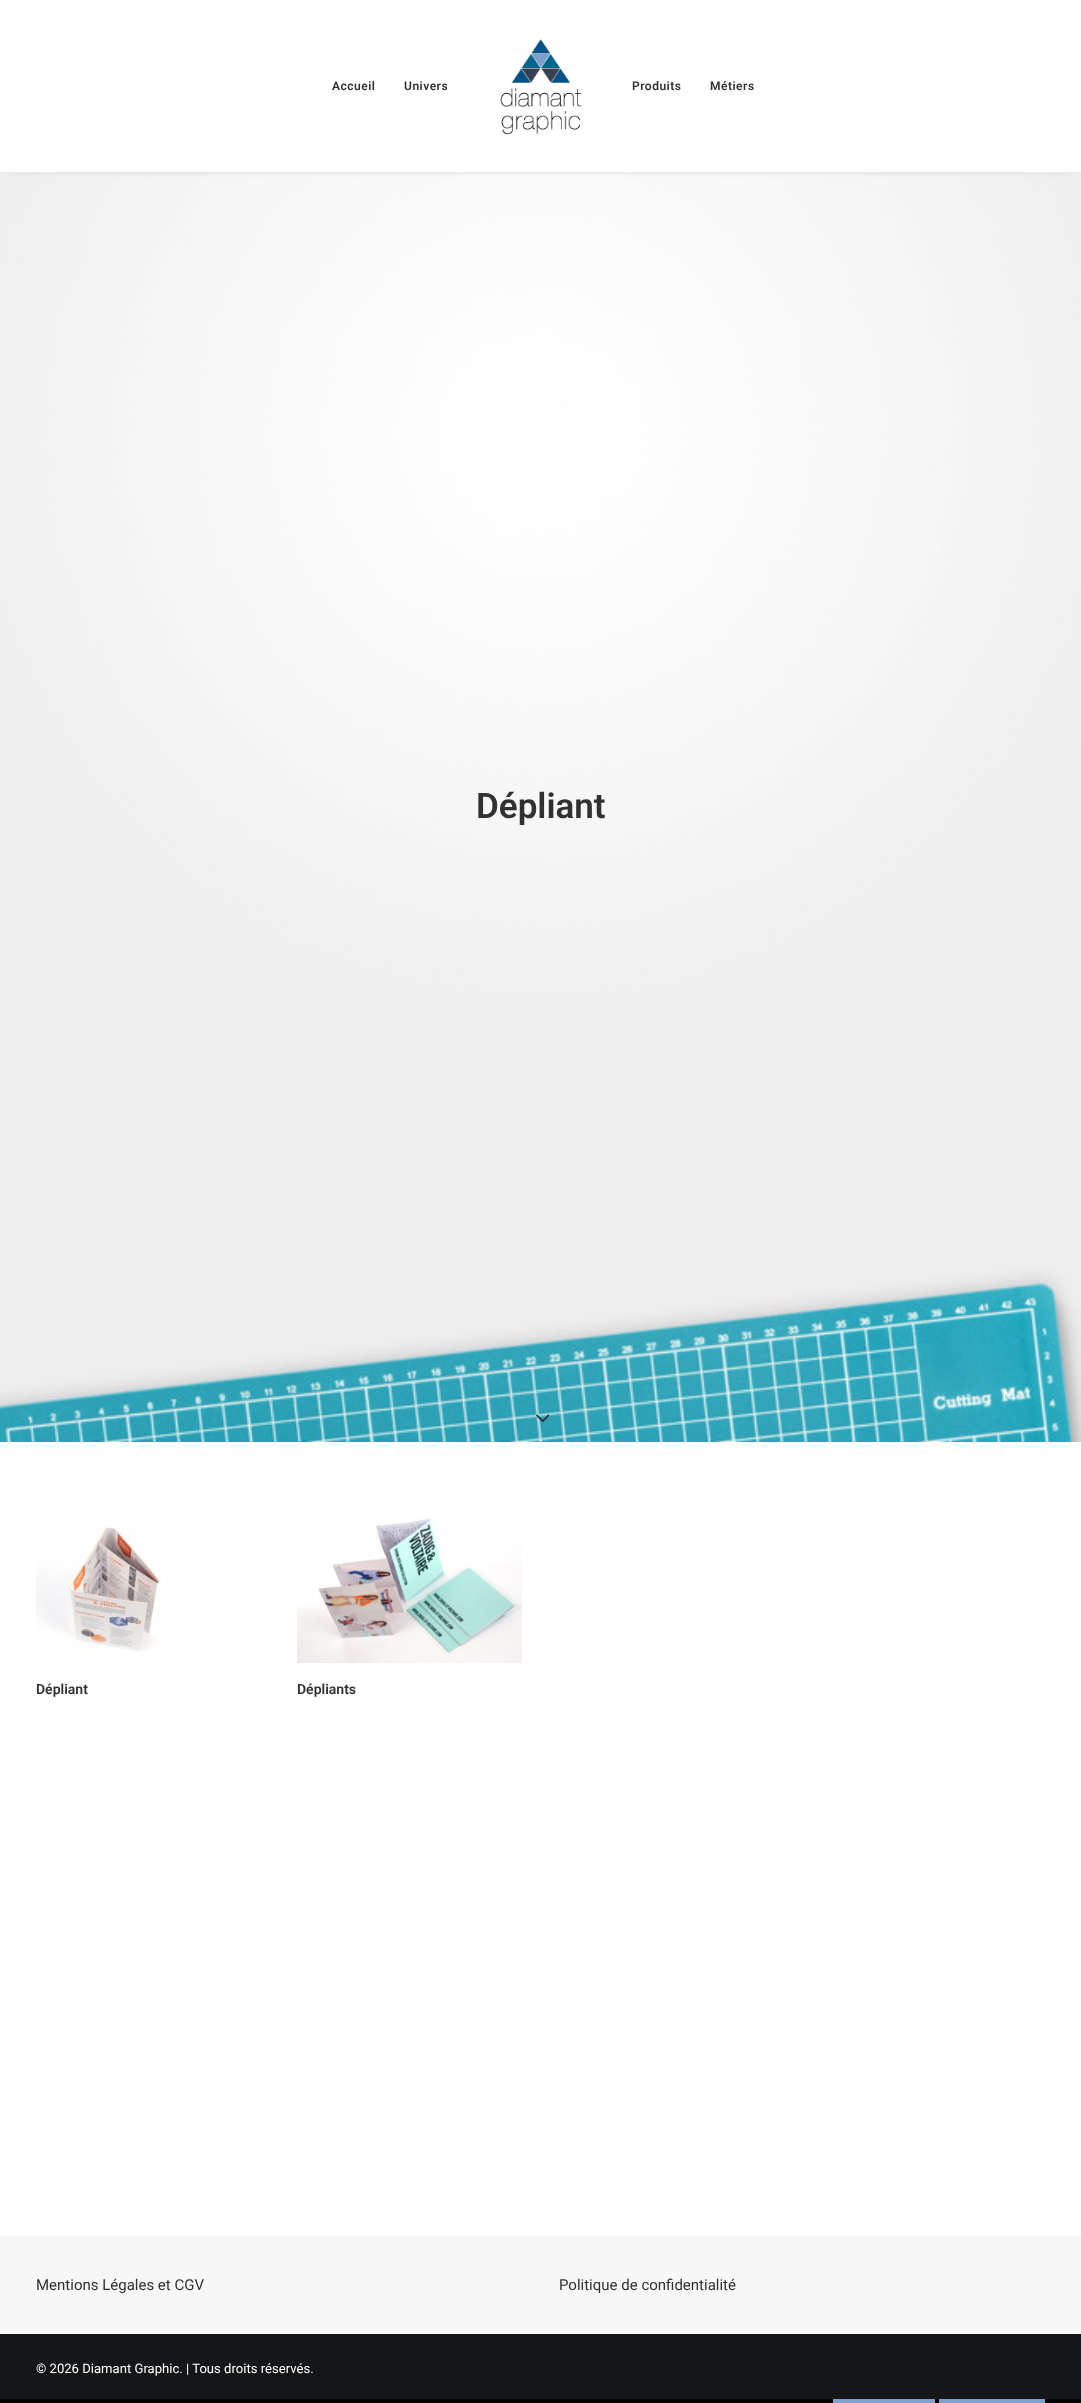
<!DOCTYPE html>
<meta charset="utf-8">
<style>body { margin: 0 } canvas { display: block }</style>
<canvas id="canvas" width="1081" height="2403"></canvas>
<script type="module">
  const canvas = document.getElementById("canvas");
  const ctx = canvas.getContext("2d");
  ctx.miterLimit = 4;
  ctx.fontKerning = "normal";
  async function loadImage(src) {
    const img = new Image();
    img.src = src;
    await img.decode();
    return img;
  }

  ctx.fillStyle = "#f7f7f7";
  ctx.fillRect(0, 0, 1081, 2403);
  ctx.drawImage(await loadImage("img2.png"), 0, 173, 1081, 1269);
  ctx.fillStyle = "rgba(0, 0, 0, 0.6)";
  ctx.filter = "blur(5px)";
  ctx.beginPath();
  ctx.rect(10, 14, 1061, 153);
  ctx.fill();
  ctx.filter = "none";
  ctx.fillStyle = "#ffffff";
  ctx.fillRect(0, 0, 1081, 172);
  ctx.fillStyle = "#eaeaea";
  ctx.fillRect(0, 172, 1081, 1);
  ctx.letterSpacing = "0.5px";
  ctx.font = "600 12px Roboto";
  ctx.fillStyle = "#303133";
  ctx.fillText("Accueil", 332, 90);
  ctx.fillText("Univers", 404, 90);
  ctx.drawImage(await loadImage("img1.png"), 500, 39, 82, 96);
  ctx.fillText("Produits", 632, 90);
  ctx.fillText("Métiers", 710, 90);
  ctx.letterSpacing = "0px";
  ctx.font = "600 35px Roboto";
  ctx.fillText("Dépliant", 476, 818);
  ctx.drawImage(await loadImage("img3.png"), 536, 1414, 14, 9);
  ctx.fillStyle = "#ffffff";
  ctx.fillRect(0, 1442, 1081, 794);
  ctx.drawImage(await loadImage("img4.png"), 36, 1527, 126, 127);
  ctx.font = "600 14px Roboto";
  ctx.fillStyle = "#303133";
  ctx.fillText("Dépliant", 36, 1694);
  ctx.drawImage(await loadImage("img5.png"), 297, 1518, 225, 145);
  ctx.fillText("Dépliants", 297, 1694);
  ctx.font = "15px Roboto";
  ctx.fillText("Mentions Légales et CGV", 36, 2290);
  ctx.fillText("Politique de confidentialité", 559, 2290);
  ctx.fillStyle = "#141618";
  ctx.fillRect(0, 2334, 1081, 65);
  ctx.font = "13.1px Roboto";
  ctx.fillStyle = "#ffffff";
  ctx.fillText("© 2026 Diamant Graphic. | Tous droits réservés.", 36, 2373);
  ctx.fillStyle = "#020202";
  ctx.fillRect(0, 2399, 1081, 4);
  ctx.fillStyle = "#7ea0cc";
  ctx.fillRect(833, 2399, 102, 4);
  ctx.fillRect(939, 2399, 106, 4);
</script>
